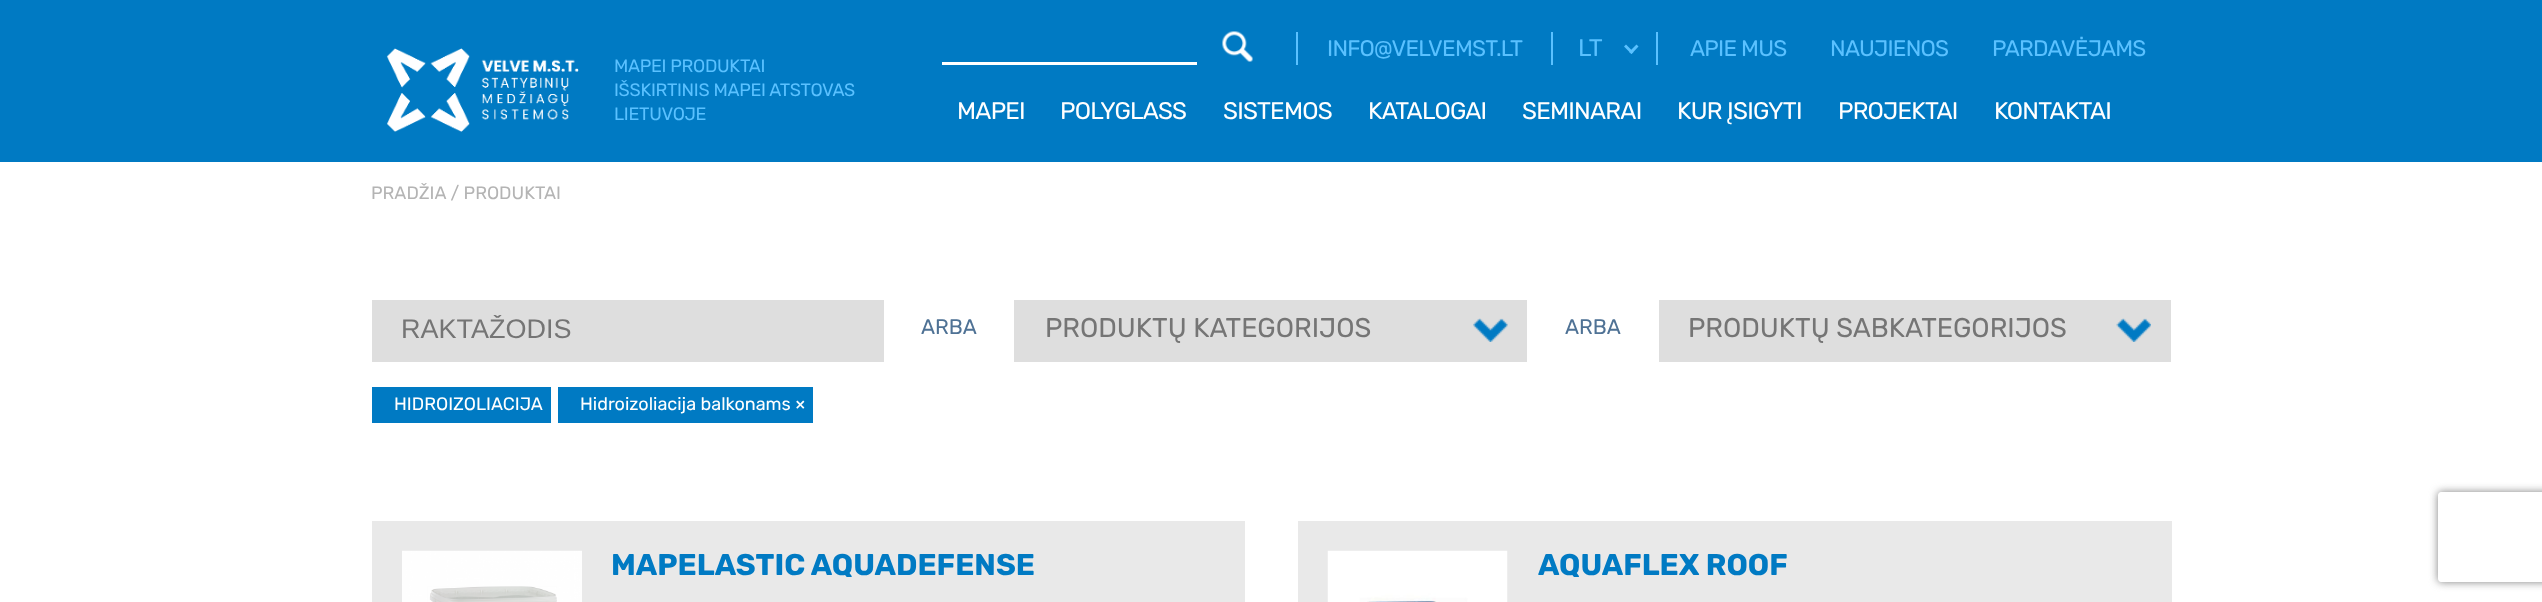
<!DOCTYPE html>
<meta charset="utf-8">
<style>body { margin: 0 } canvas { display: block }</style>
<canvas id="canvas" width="2542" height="602"></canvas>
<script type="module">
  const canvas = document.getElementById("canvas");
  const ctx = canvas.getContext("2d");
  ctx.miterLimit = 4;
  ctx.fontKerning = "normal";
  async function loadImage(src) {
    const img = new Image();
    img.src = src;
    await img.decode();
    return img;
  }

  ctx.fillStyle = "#ffffff";
  ctx.fillRect(0, 0, 2542, 602);
  ctx.fillStyle = "#007ac3";
  ctx.fillRect(0, 0, 2542, 162);
  ctx.drawImage(await loadImage("img1.png"), 386, 48, 193, 84);
  ctx.letterSpacing = "-0.3px";
  ctx.font = "18px Rubik";
  ctx.fillStyle = "#5ac1ff";
  ctx.fillText("MAPEI PRODUKTAI", 614, 72);
  ctx.fillText("IŠSKIRTINIS MAPEI ATSTOVAS", 614, 96);
  ctx.fillText("LIETUVOJE", 614, 120);
  ctx.fillRect(1296, 32, 2, 33);
  ctx.drawImage(await loadImage("img2.png"), 1222, 31, 31, 31);
  ctx.fillStyle = "#ffffff";
  ctx.fillRect(942, 62, 255, 3);
  ctx.fillStyle = "#5ac1ff";
  ctx.fillRect(1551, 32, 2, 33);
  ctx.letterSpacing = "-0.75px";
  ctx.font = "22.5px Rubik";
  ctx.fillText("INFO@VELVEMST.LT", 1327, 56);
  ctx.fillRect(1656, 32, 2, 33);
  ctx.letterSpacing = "0px";
  ctx.font = "24px Rubik";
  ctx.fillText("LT", 1578, 56);
  ctx.beginPath();
  ctx.moveTo(1636.5, 44.5);
  ctx.lineTo(1638.5, 46.5);
  ctx.lineTo(1631.5, 54);
  ctx.lineTo(1629, 52);
  ctx.closePath();
  ctx.fill();
  ctx.beginPath();
  ctx.moveTo(1626, 44.5);
  ctx.lineTo(1633.5, 52);
  ctx.lineTo(1631.5, 54);
  ctx.lineTo(1624, 46.5);
  ctx.closePath();
  ctx.fill();
  ctx.letterSpacing = "-0.75px";
  ctx.font = "22.5px Rubik";
  ctx.fillText("APIE MUS", 1690, 56);
  ctx.fillText("NAUJIENOS", 1830, 56);
  ctx.fillText("PARDAVĖJAMS", 1992, 56);
  ctx.font = "24px Rubik";
  ctx.fillStyle = "#ffffff";
  ctx.fillText("MAPEI", 957, 119);
  ctx.fillText("POLYGLASS", 1060, 119);
  ctx.fillText("SISTEMOS", 1223, 119);
  ctx.fillText("KATALOGAI", 1368, 119);
  ctx.fillText("SEMINARAI", 1522, 119);
  ctx.fillText("KUR ĮSIGYTI", 1677, 119);
  ctx.fillText("PROJEKTAI", 1838, 119);
  ctx.fillText("KONTAKTAI", 1994, 119);
  ctx.letterSpacing = "0px";
  ctx.font = "18px Rubik";
  ctx.fillStyle = "#b4b4b4";
  ctx.fillText("PRADŽIA / PRODUKTAI", 371, 199);
  ctx.fillStyle = "#dedede";
  ctx.fillRect(372, 300, 512, 62);
  ctx.save();
  ctx.beginPath();
  ctx.rect(402, 315, 452, 32);
  ctx.clip();
  ctx.font = "27px Liberation Sans";
  ctx.fillStyle = "#757575";
  ctx.fillText("RAKTAŽODIS", 401, 338);
  ctx.restore();
  ctx.font = "21px Rubik";
  ctx.fillStyle = "#4f7295";
  ctx.fillText("ARBA", 921, 334);
  ctx.fillStyle = "#dedede";
  ctx.fillRect(1014, 300, 513, 62);
  ctx.drawImage(await loadImage("img3.png"), 1473, 318, 35, 24);
  ctx.font = "27px Rubik";
  ctx.fillStyle = "#757575";
  ctx.fillText("PRODUKTŲ KATEGORIJOS", 1045, 337);
  ctx.font = "21px Rubik";
  ctx.fillStyle = "#4f7295";
  ctx.fillText("ARBA", 1565, 334);
  ctx.fillStyle = "#dedede";
  ctx.fillRect(1659, 300, 512, 62);
  ctx.drawImage(await loadImage("img4.png"), 2116, 318, 35, 24);
  ctx.font = "27px Rubik";
  ctx.fillStyle = "#757575";
  ctx.fillText("PRODUKTŲ SABKATEGORIJOS", 1688, 337);
  ctx.fillStyle = "#007ac3";
  ctx.fillRect(372, 387, 179, 36);
  ctx.font = "18px Rubik";
  ctx.fillStyle = "#ffffff";
  ctx.fillText("HIDROIZOLIACIJA", 394, 410);
  ctx.fillStyle = "#007ac3";
  ctx.fillRect(558, 387, 255, 36);
  ctx.fillStyle = "#ffffff";
  ctx.fillText("Hidroizoliacija balkonams ×", 580, 410);
  ctx.fillStyle = "#e9e9e9";
  ctx.fillRect(372, 521, 873, 81);
  ctx.drawImage(await loadImage("img5.png"), 402, 550, 180, 52);
  ctx.font = "bold 30px Rubik";
  ctx.fillStyle = "#007ac3";
  ctx.fillText("MAPELASTIC AQUADEFENSE", 611, 575);
  ctx.fillStyle = "#e9e9e9";
  ctx.fillRect(1298, 521, 874, 81);
  ctx.drawImage(await loadImage("img6.png"), 1327, 550, 181, 52);
  ctx.fillStyle = "#007ac3";
  ctx.fillText("AQUAFLEX ROOF", 1538, 575);
  ctx.save();
  ctx.beginPath();
  ctx.moveTo(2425, 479);
  ctx.lineTo(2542, 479);
  ctx.lineTo(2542, 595);
  ctx.lineTo(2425, 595);
  ctx.closePath();
  ctx.moveTo(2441, 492);
  ctx.lineTo(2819, 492);
  ctx.bezierCurveTo(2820.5, 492, 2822, 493.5, 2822, 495);
  ctx.lineTo(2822, 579);
  ctx.bezierCurveTo(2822, 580.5, 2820.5, 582, 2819, 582);
  ctx.lineTo(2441, 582);
  ctx.bezierCurveTo(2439.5, 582, 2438, 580.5, 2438, 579);
  ctx.lineTo(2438, 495);
  ctx.bezierCurveTo(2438, 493.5, 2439.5, 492, 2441, 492);
  ctx.closePath();
  ctx.clip("evenodd");
  ctx.fillStyle = "#808080";
  ctx.filter = "blur(4px)";
  ctx.beginPath();
  ctx.roundRect(2438, 492, 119, 90, 3);
  ctx.fill();
  ctx.filter = "none";
  ctx.restore();
</script>
